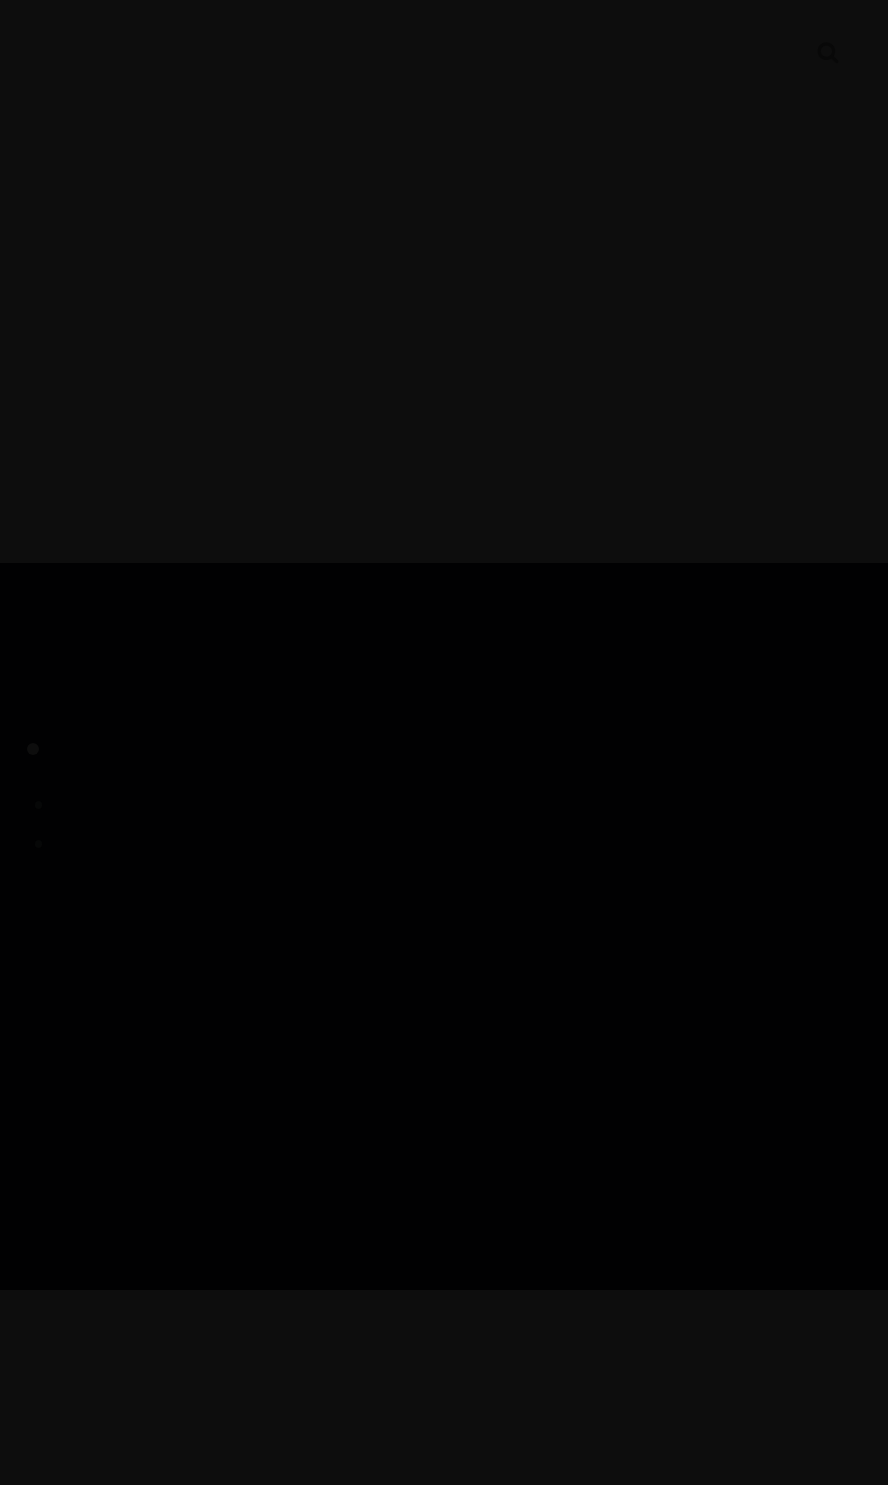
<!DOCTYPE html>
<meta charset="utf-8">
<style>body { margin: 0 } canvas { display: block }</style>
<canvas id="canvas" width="888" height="1485"></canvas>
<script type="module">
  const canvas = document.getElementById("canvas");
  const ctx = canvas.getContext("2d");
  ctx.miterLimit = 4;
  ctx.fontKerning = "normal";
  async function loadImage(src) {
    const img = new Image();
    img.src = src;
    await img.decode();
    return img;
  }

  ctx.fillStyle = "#0d0d0d";
  ctx.fillRect(0, 0, 888, 1485);
  ctx.drawImage(await loadImage("img1.png"), 817, 42, 22, 22);
  ctx.fillStyle = "#010102";
  ctx.fillRect(0, 563, 888, 727);
  ctx.fillStyle = "#0d0d0d";
  ctx.beginPath();
  ctx.arc(33, 749, 6, 0, Math.PI * 2);
  ctx.fill();
  ctx.fillStyle = "#060707";
  ctx.beginPath();
  ctx.roundRect(35, 801, 7, 8, 3.5);
  ctx.fill();
  ctx.beginPath();
  ctx.roundRect(35, 840, 7, 8, 3.5);
  ctx.fill();
</script>
